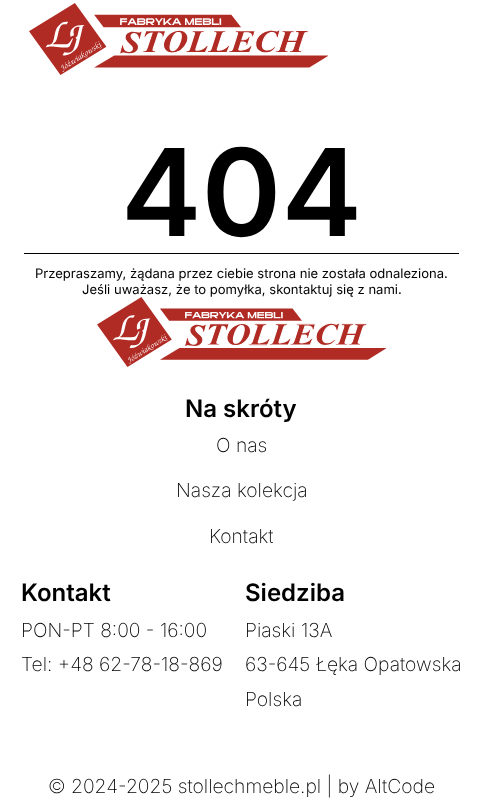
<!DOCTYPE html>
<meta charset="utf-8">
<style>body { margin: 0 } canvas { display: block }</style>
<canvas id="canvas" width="483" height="810"></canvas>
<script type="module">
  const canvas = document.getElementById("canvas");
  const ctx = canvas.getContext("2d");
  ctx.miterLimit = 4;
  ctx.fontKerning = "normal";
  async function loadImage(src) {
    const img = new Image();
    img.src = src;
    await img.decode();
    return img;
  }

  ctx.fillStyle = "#ffffff";
  ctx.fillRect(0, 0, 483, 810);
  ctx.drawImage(await loadImage("img1.png"), 29, 3, 299, 72);
  ctx.font = "600 121px Inter";
  ctx.fillStyle = "#000000";
  ctx.fillText("404", 121, 236);
  ctx.font = "13.05px Inter";
  ctx.fillText("Przepraszamy, żądana przez ciebie strona nie została odnaleziona.", 35, 278);
  ctx.fillText("Jeśli uważasz, że to pomyłka, skontaktuj się z nami.", 82, 294);
  ctx.fillRect(24, 253, 435, 1);
  ctx.drawImage(await loadImage("img2.png"), 97, 297, 289, 70);
  ctx.font = "600 24px Inter";
  ctx.fillText("Na skróty", 185, 417);
  ctx.font = "200 19.3px Inter";
  ctx.fillText("O nas", 216, 452);
  ctx.fillText("Nasza kolekcja", 176, 497);
  ctx.fillText("Kontakt", 209, 543);
  ctx.font = "600 24px Inter";
  ctx.fillText("Kontakt", 21, 601);
  ctx.font = "200 19.3px Inter";
  ctx.fillText("PON-PT 8:00 - 16:00", 21, 637);
  ctx.fillText("Tel: +48 62-78-18-869", 21, 671);
  ctx.font = "600 24px Inter";
  ctx.fillText("Siedziba", 245, 601);
  ctx.font = "200 19.3px Inter";
  ctx.fillText("Piaski 13A", 245, 637);
  ctx.fillText("63-645 Łęka Opatowska", 245, 671);
  ctx.fillText("Polska", 245, 706);
  ctx.fillText("© 2024-2025 stollechmeble.pl | by AltCode", 48, 793);
</script>
